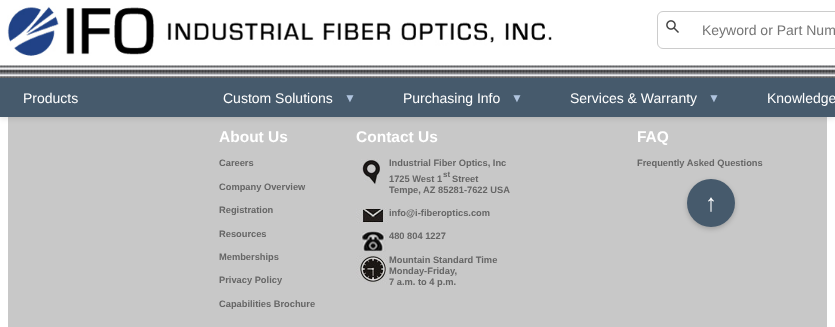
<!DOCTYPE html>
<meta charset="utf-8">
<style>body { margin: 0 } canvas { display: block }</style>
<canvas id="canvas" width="835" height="327"></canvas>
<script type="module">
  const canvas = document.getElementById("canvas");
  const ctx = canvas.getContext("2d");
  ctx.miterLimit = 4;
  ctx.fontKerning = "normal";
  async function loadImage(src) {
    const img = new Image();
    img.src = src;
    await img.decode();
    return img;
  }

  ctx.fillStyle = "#ffffff";
  ctx.fillRect(0, 0, 835, 327);
  ctx.fillStyle = "#c8c8c8";
  ctx.fillRect(8, 117, 819, 210);
  ctx.fillStyle = "rgba(0, 0, 0, 0.1)";
  ctx.filter = "blur(2.5px)";
  ctx.beginPath();
  ctx.rect(0, 2, 835, 117);
  ctx.fill();
  ctx.filter = "none";
  ctx.fillStyle = "#ffffff";
  ctx.fillRect(0, 0, 835, 65);
  ctx.drawImage(await loadImage("img1.png"), 7, 6, 545, 50);
  ctx.drawImage(await loadImage("img2.png"), 666, 20, 13, 13);
  ctx.beginPath();
  ctx.roundRect(657.5, 11.5, 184, 37, 5.5);
  ctx.strokeStyle = "#cccccc";
  ctx.stroke();
  ctx.font = "14px Liberation Sans";
  ctx.fillStyle = "#757575";
  ctx.fillText("Keyword or Part Num", 702, 35);
  ctx.drawImage(await loadImage("img3.png"), 0, 65, 835, 13);
  ctx.fillStyle = "#465a6c";
  ctx.fillRect(0, 78, 835, 39);
  ctx.fillStyle = "#ffffff";
  ctx.fillText("Products", 23, 103);
  ctx.fillText("Custom Solutions", 223, 103);
  ctx.font = "12px Liberation Sans";
  ctx.fillStyle = "#b0c4de";
  ctx.fillText("▼", 344, 102);
  ctx.font = "14px Liberation Sans";
  ctx.fillStyle = "#ffffff";
  ctx.fillText("Purchasing Info", 403, 103);
  ctx.font = "12px Liberation Sans";
  ctx.fillStyle = "#b0c4de";
  ctx.fillText("▼", 511, 102);
  ctx.font = "14px Liberation Sans";
  ctx.fillStyle = "#ffffff";
  ctx.fillText("Services & Warranty", 570, 103);
  ctx.font = "12px Liberation Sans";
  ctx.fillStyle = "#b0c4de";
  ctx.fillText("▼", 708, 102);
  ctx.font = "14px Liberation Sans";
  ctx.fillStyle = "#ffffff";
  ctx.fillText("Knowledge", 767, 103);
  ctx.font = "bold 15.5px Liberation Sans";
  ctx.fillText("About Us", 219, 142);
  ctx.font = "bold 9.3px Liberation Sans";
  ctx.fillStyle = "#666666";
  ctx.fillText("Careers", 219, 166);
  ctx.fillText("Company Overview", 219, 190);
  ctx.fillText("Registration", 219, 213);
  ctx.fillText("Resources", 219, 237);
  ctx.fillText("Memberships", 219, 260);
  ctx.fillText("Privacy Policy", 219, 283);
  ctx.fillText("Capabilities Brochure", 219, 307);
  ctx.font = "bold 15.5px Liberation Sans";
  ctx.fillStyle = "#ffffff";
  ctx.fillText("Contact Us", 356, 142);
  ctx.drawImage(await loadImage("img4.png"), 361, 159, 19, 26);
  ctx.font = "bold 9.3px Liberation Sans";
  ctx.fillStyle = "#666666";
  ctx.fillText("Industrial Fiber Optics, Inc", 389, 166);
  ctx.fillText("1725 West 1", 389, 182);
  ctx.font = "bold 8px Liberation Sans";
  ctx.fillText("st", 443, 177);
  ctx.font = "bold 9.3px Liberation Sans";
  ctx.fillText("Street", 452, 182);
  ctx.fillText("Tempe, AZ 85281-7622 USA", 389, 193);
  ctx.drawImage(await loadImage("img5.png"), 356, 208, 32, 16);
  ctx.fillText("info@i-fiberoptics.com", 389, 216);
  ctx.drawImage(await loadImage("img6.png"), 361, 231, 25, 21);
  ctx.fillText("480 804 1227", 389, 239);
  ctx.drawImage(await loadImage("img7.png"), 356, 255, 32, 29);
  ctx.fillText("Mountain Standard Time", 389, 263);
  ctx.fillText("Monday-Friday,", 389, 274);
  ctx.fillText("7 a.m. to 4 p.m.", 389, 285);
  ctx.font = "bold 15.5px Liberation Sans";
  ctx.fillStyle = "#ffffff";
  ctx.fillText("FAQ", 637, 142);
  ctx.font = "bold 9.3px Liberation Sans";
  ctx.fillStyle = "#666666";
  ctx.fillText("Frequently Asked Questions", 637, 166);
  ctx.fillStyle = "rgba(0, 0, 0, 0.2)";
  ctx.filter = "blur(2.5px)";
  ctx.beginPath();
  ctx.roundRect(687, 181, 48, 48, 24);
  ctx.fill();
  ctx.filter = "none";
  ctx.fillStyle = "#465a6c";
  ctx.beginPath();
  ctx.arc(711, 203, 24, 0, Math.PI * 2);
  ctx.fill();
  ctx.font = "24px Liberation Sans";
  ctx.fillStyle = "#ffffff";
  ctx.fillText("↑", 705, 211);
</script>
